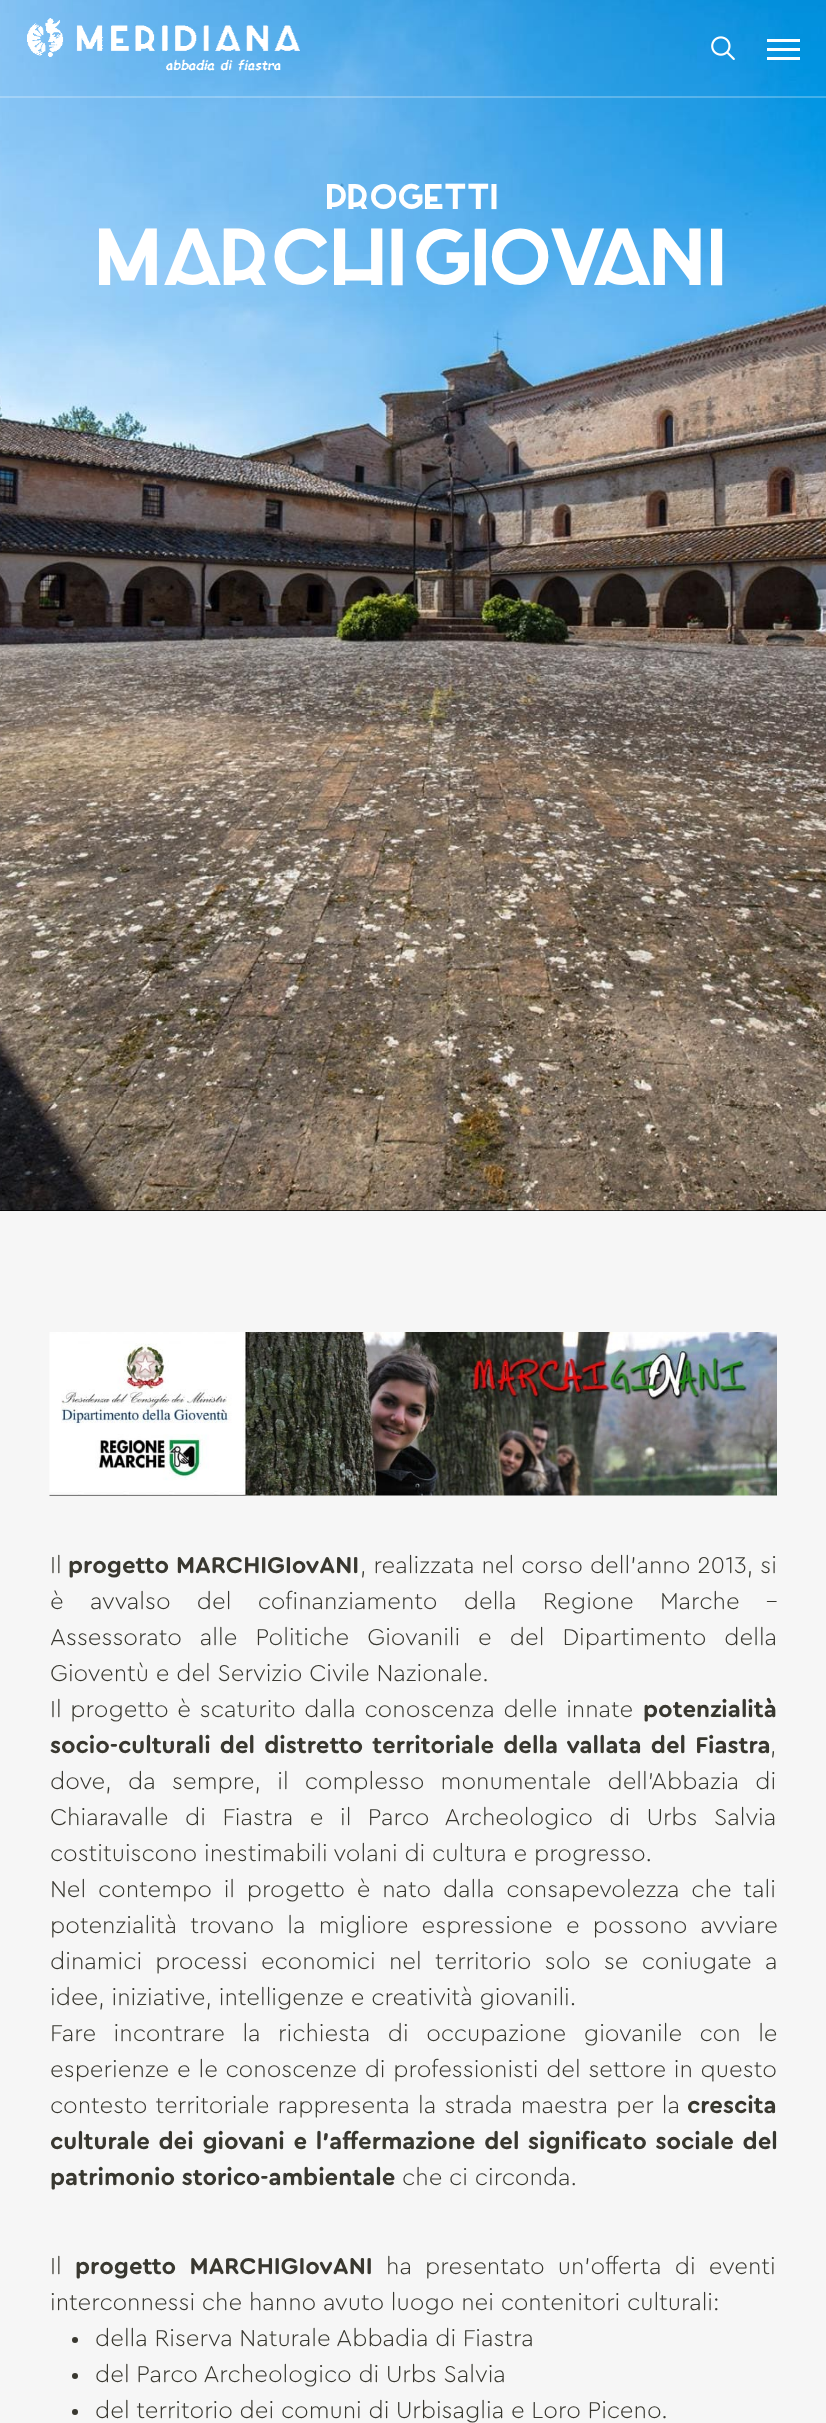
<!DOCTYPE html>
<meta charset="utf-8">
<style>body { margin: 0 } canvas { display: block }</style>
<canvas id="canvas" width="826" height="2423"></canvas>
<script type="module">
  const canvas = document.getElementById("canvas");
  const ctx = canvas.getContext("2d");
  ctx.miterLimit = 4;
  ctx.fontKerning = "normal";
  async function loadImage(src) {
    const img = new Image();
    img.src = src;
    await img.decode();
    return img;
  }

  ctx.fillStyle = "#f6f6f6";
  ctx.fillRect(0, 0, 826, 2423);
  ctx.fillStyle = "#000000";
  ctx.fillRect(0, 1210, 826, 1);
  ctx.drawImage(await loadImage("img3.png"), 0, 0, 826, 1211);
  ctx.fillStyle = "rgba(255, 255, 255, 0.25)";
  ctx.fillRect(0, 96, 826, 2);
  ctx.drawImage(await loadImage("img1.png"), 27, 18, 273, 53);
  ctx.drawImage(await loadImage("img2.png"), 711, 36, 24, 24);
  ctx.fillStyle = "#ffffff";
  ctx.fillRect(767, 39, 33, 3);
  ctx.fillRect(767, 57, 33, 3);
  ctx.fillRect(767, 48, 33, 3);
  ctx.font = "bold 48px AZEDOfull";
  ctx.fillText("PROGETTI", 327, 209);
  ctx.font = "bold 108px AZEDOfull";
  ctx.fillText("MARCHIGIOVANI", 99, 285);
  ctx.drawImage(await loadImage("img4.png"), 49, 1332, 728, 164);
  ctx.font = "300 24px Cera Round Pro";
  ctx.fillStyle = "#393830";
  ctx.fillText("Il", 50, 1573);
  ctx.font = "bold 24px Cera Round Pro";
  ctx.fillText("progetto MARCHIGIovANI", 68, 1573);
  ctx.wordSpacing = "0.25px";
  ctx.font = "300 24px Cera Round Pro";
  ctx.fillText(", realizzata nel corso dell’anno 2013, si", 360, 1573);
  ctx.wordSpacing = "19.5px";
  ctx.fillText("è avvalso del cofinanziamento della Regione Marche –", 50, 1609);
  ctx.wordSpacing = "11.25px";
  ctx.fillText("Assessorato alle Politiche Giovanili e del Dipartimento della", 50, 1645);
  ctx.wordSpacing = "0px";
  ctx.fillText("Gioventù e del Servizio Civile Nazionale.", 50, 1681);
  ctx.wordSpacing = "2px";
  ctx.fillText("Il progetto è scaturito dalla conoscenza delle innate", 50, 1717);
  ctx.wordSpacing = "0px";
  ctx.font = "bold 24px Cera Round Pro";
  ctx.fillText("potenzialità", 643, 1717);
  ctx.wordSpacing = "2.5px";
  ctx.fillText("socio-culturali del distretto territoriale della vallata del Fiastra", 50, 1753);
  ctx.wordSpacing = "0px";
  ctx.font = "300 24px Cera Round Pro";
  ctx.fillText(",", 770, 1753);
  ctx.wordSpacing = "9.5px";
  ctx.fillText("dove, da sempre, il complesso monumentale dell’Abbazia di", 50, 1789);
  ctx.wordSpacing = "9.75px";
  ctx.fillText("Chiaravalle di Fiastra e il Parco Archeologico di Urbs Salvia", 50, 1825);
  ctx.wordSpacing = "0px";
  ctx.fillText("costituiscono inestimabili volani di cultura e progresso.", 50, 1861);
  ctx.wordSpacing = "5px";
  ctx.fillText("Nel contempo il progetto è nato dalla consapevolezza che tali", 50, 1897);
  ctx.wordSpacing = "6.5px";
  ctx.fillText("potenzialità trovano la migliore espressione e possono avviare", 50, 1933);
  ctx.fillText("dinamici processi economici nel territorio solo se coniugate a", 50, 1969);
  ctx.wordSpacing = "0px";
  ctx.fillText("idee, iniziative, intelligenze e creatività giovanili.", 50, 2005);
  ctx.wordSpacing = "10.75px";
  ctx.fillText("Fare incontrare la richiesta di occupazione giovanile con le", 50, 2041);
  ctx.wordSpacing = "1px";
  ctx.fillText("esperienze e le conoscenze di professionisti del settore in questo", 50, 2077);
  ctx.wordSpacing = "1.5px";
  ctx.fillText("contesto territoriale rappresenta la strada maestra per la", 50, 2113);
  ctx.wordSpacing = "0px";
  ctx.font = "bold 24px Cera Round Pro";
  ctx.fillText("crescita", 687, 2113);
  ctx.wordSpacing = "2px";
  ctx.fillText("culturale dei giovani e l’affermazione del significato sociale del", 50, 2149);
  ctx.wordSpacing = "0px";
  ctx.fillText("patrimonio storico-ambientale", 50, 2185);
  ctx.font = "300 24px Cera Round Pro";
  ctx.fillText("che ci circonda.", 402, 2185);
  ctx.fillText("Il", 50, 2274);
  ctx.wordSpacing = "6.5px";
  ctx.font = "bold 24px Cera Round Pro";
  ctx.fillText("progetto MARCHIGIovANI", 75, 2274);
  ctx.font = "300 24px Cera Round Pro";
  ctx.fillText("ha presentato un’offerta di eventi", 386, 2274);
  ctx.wordSpacing = "0px";
  ctx.fillText("interconnessi che hanno avuto luogo nei contenitori culturali:", 50, 2310);
  ctx.beginPath();
  ctx.arc(75, 2340, 3, 0, Math.PI * 2);
  ctx.fill();
  ctx.fillText("della Riserva Naturale Abbadia di Fiastra", 95, 2346);
  ctx.beginPath();
  ctx.arc(75, 2376, 3, 0, Math.PI * 2);
  ctx.fill();
  ctx.fillText("del Parco Archeologico di Urbs Salvia", 95, 2382);
  ctx.beginPath();
  ctx.arc(75, 2412, 3, 0, Math.PI * 2);
  ctx.fill();
  ctx.fillText("del territorio dei comuni di Urbisaglia e Loro Piceno.", 95, 2418);
</script>
